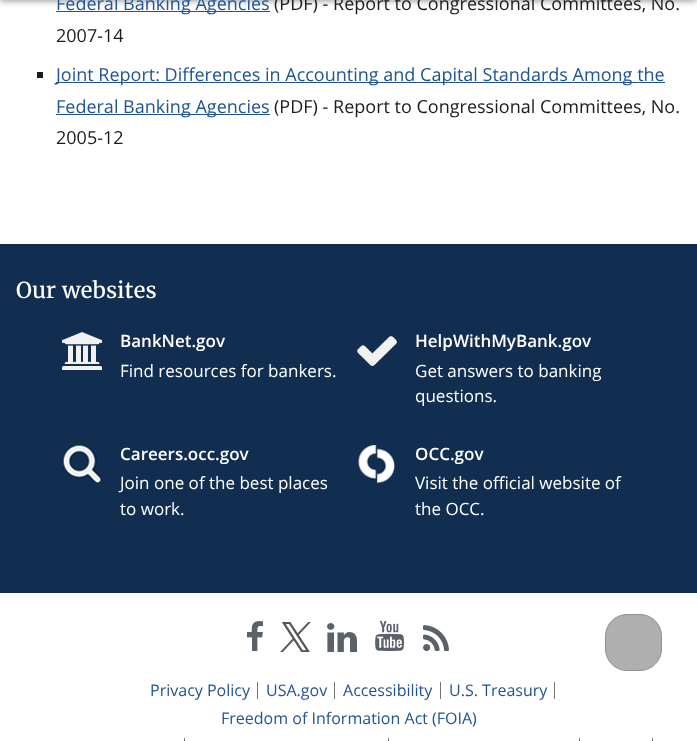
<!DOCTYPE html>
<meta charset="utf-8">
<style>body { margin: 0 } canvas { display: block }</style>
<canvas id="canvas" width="697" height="741"></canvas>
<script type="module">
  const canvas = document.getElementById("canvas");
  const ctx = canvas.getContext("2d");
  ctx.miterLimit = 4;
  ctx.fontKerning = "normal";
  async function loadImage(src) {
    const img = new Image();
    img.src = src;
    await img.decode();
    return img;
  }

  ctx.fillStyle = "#ffffff";
  ctx.fillRect(0, 0, 697, 741);
  ctx.fillStyle = "#98999b";
  ctx.filter = "blur(3px)";
  ctx.beginPath();
  ctx.rect(0, -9, 697, 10);
  ctx.fill();
  ctx.filter = "none";
  ctx.fillStyle = "#205493";
  ctx.fillRect(56, 11, 214, 1);
  ctx.font = "18px Open Sans";
  ctx.fillText("Federal Banking Agencies", 56, 10);
  ctx.fillStyle = "#1b1b1b";
  ctx.fillText("(PDF) - Report to Congressional Committees, No.", 274, 10);
  ctx.fillText("2007-14", 56, 42);
  ctx.fillRect(37, 72, 6, 6);
  ctx.fillStyle = "#205493";
  ctx.fillRect(56, 82, 609, 1);
  ctx.fillText("Joint Report: Differences in Accounting and Capital Standards Among the", 56, 81);
  ctx.fillRect(56, 114, 214, 1);
  ctx.fillText("Federal Banking Agencies", 56, 113);
  ctx.fillStyle = "#1b1b1b";
  ctx.fillText("(PDF) - Report to Congressional Committees, No.", 274, 113);
  ctx.fillText("2005-12", 56, 144);
  ctx.fillStyle = "#112e51";
  ctx.fillRect(0, 244, 697, 349);
  ctx.font = "22px Merriweather";
  ctx.fillStyle = "#ffffff";
  ctx.fillText("Our websites", 16, 298);
  ctx.drawImage(await loadImage("img1.png"), 62, 332, 40, 38);
  ctx.font = "600 17px Open Sans";
  ctx.fillText("BankNet.gov", 120, 347);
  ctx.font = "17px Open Sans";
  ctx.fillText("Find resources for bankers.", 120, 377);
  ctx.drawImage(await loadImage("img2.png"), 357, 336, 40, 30);
  ctx.font = "600 17px Open Sans";
  ctx.fillText("HelpWithMyBank.gov", 415, 347);
  ctx.font = "17px Open Sans";
  ctx.fillText("Get answers to banking", 415, 377);
  ctx.fillText("questions.", 415, 402);
  ctx.drawImage(await loadImage("img3.png"), 62, 445, 40, 38);
  ctx.font = "600 17px Open Sans";
  ctx.fillText("Careers.occ.gov", 120, 460);
  ctx.font = "17px Open Sans";
  ctx.fillText("Join one of the best places", 120, 489);
  ctx.fillText("to work.", 120, 515);
  ctx.drawImage(await loadImage("img4.png"), 357, 445, 40, 38);
  ctx.font = "600 17px Open Sans";
  ctx.fillText("OCC.gov", 415, 460);
  ctx.font = "17px Open Sans";
  ctx.fillText("Visit the official website of", 415, 489);
  ctx.fillText("the OCC.", 415, 515);
  ctx.drawImage(await loadImage("img5.png"), 247, 621, 16, 30);
  ctx.drawImage(await loadImage("img6.png"), 280, 622, 31, 30);
  ctx.drawImage(await loadImage("img7.png"), 327, 623, 30, 29);
  ctx.drawImage(await loadImage("img8.png"), 375, 621, 29, 30);
  ctx.drawImage(await loadImage("img9.png"), 423, 625, 26, 26);
  ctx.font = "16px Open Sans";
  ctx.fillStyle = "#205493";
  ctx.fillText("Privacy Policy", 150, 696);
  ctx.fillStyle = "#757575";
  ctx.fillRect(257, 682, 1, 17);
  ctx.fillStyle = "#205493";
  ctx.fillText("USA.gov", 266, 696);
  ctx.fillStyle = "#757575";
  ctx.fillRect(334, 682, 1, 17);
  ctx.fillStyle = "#205493";
  ctx.fillText("Accessibility", 343, 696);
  ctx.fillStyle = "#757575";
  ctx.fillRect(440, 682, 1, 17);
  ctx.fillStyle = "#205493";
  ctx.fillText("U.S. Treasury", 449, 696);
  ctx.fillStyle = "#757575";
  ctx.fillRect(554, 682, 1, 17);
  ctx.fillStyle = "#205493";
  ctx.fillText("Freedom of Information Act (FOIA)", 221, 724);
  ctx.fillStyle = "#757575";
  ctx.fillRect(184, 738, 1, 3);
  ctx.fillRect(388, 738, 1, 3);
  ctx.fillRect(579, 738, 1, 3);
  ctx.fillRect(652, 738, 1, 3);
  ctx.fillStyle = "#afafaf";
  ctx.beginPath();
  ctx.roundRect(605.5, 614.5, 56, 56, 21.5);
  ctx.fill();
  ctx.strokeStyle = "#919191";
  ctx.stroke();
</script>
